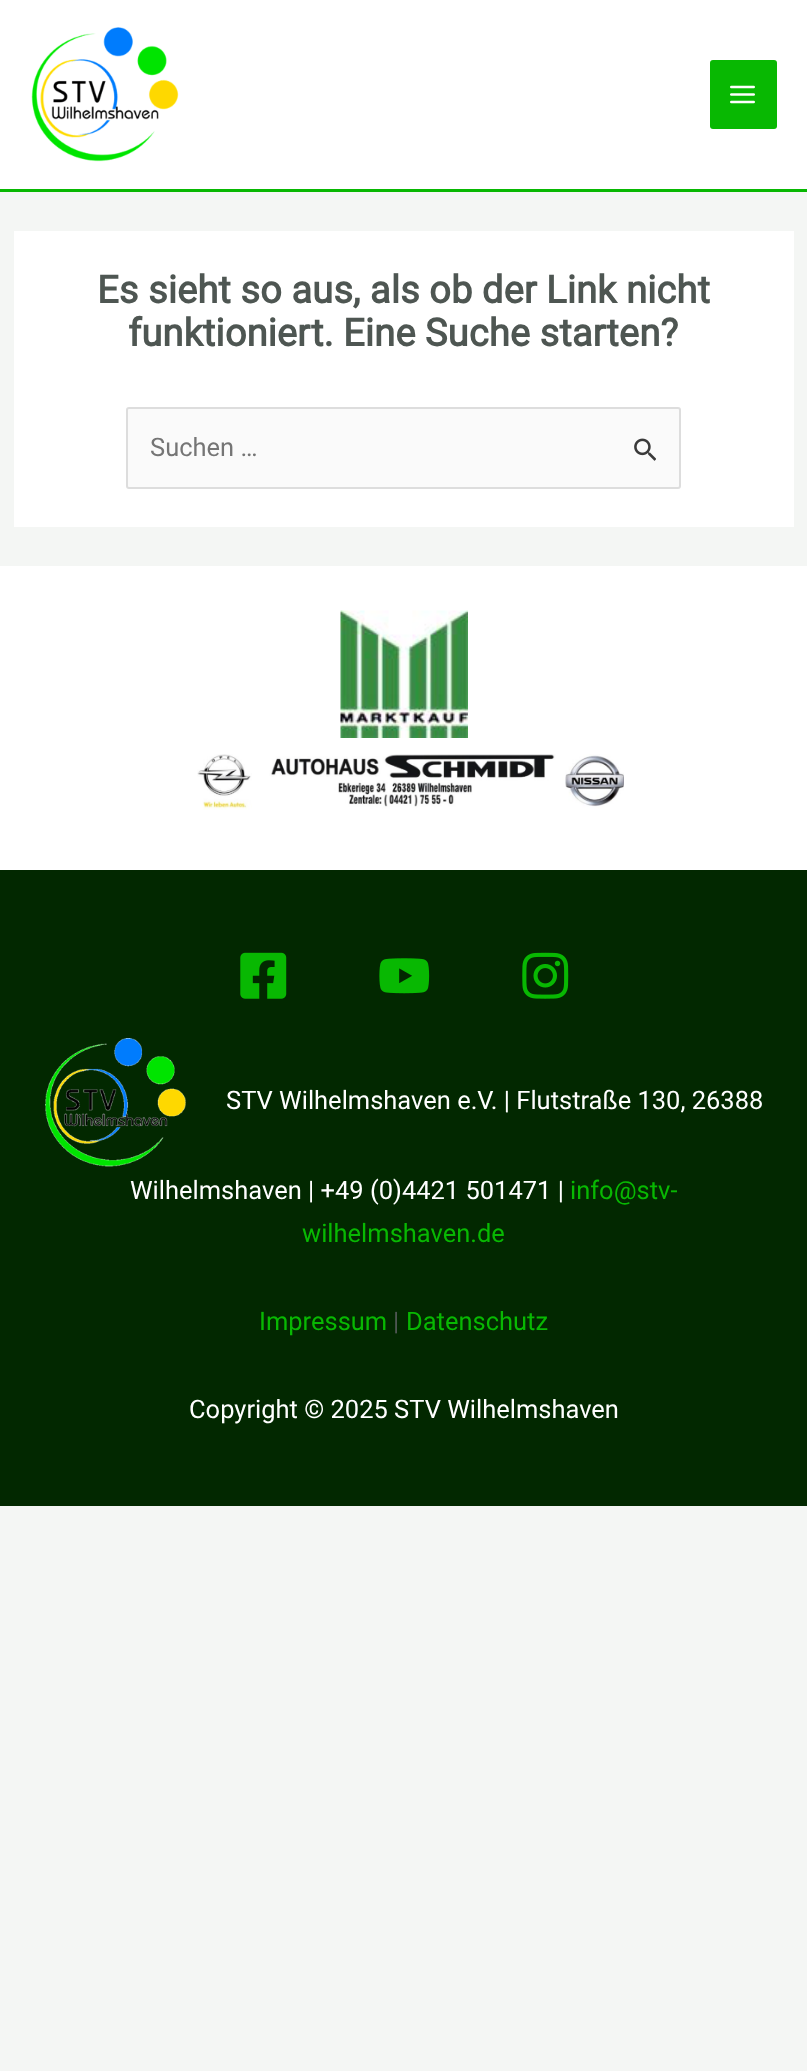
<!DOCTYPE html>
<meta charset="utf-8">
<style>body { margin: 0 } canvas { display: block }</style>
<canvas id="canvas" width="807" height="2071"></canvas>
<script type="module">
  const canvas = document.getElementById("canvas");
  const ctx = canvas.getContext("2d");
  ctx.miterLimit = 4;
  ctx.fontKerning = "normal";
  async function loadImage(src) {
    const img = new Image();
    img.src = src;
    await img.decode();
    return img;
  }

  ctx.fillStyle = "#f4f6f4";
  ctx.fillRect(0, 0, 807, 2071);
  ctx.fillStyle = "#ffffff";
  ctx.fillRect(0, 0, 807, 189);
  ctx.fillStyle = "#08b802";
  ctx.fillRect(0, 189, 807, 3);
  ctx.drawImage(await loadImage("img1.png"), 31, 27, 148, 135);
  ctx.beginPath();
  ctx.roundRect(710, 60, 67, 69, 3);
  ctx.fill();
  ctx.drawImage(await loadImage("img2.png"), 730, 85, 25, 19);
  ctx.fillStyle = "#ffffff";
  ctx.fillRect(14, 231, 780, 296);
  ctx.font = "bold 38.25px Roboto";
  ctx.fillStyle = "#4e5652";
  ctx.fillText("Es sieht so aus, als ob der Link nicht", 97, 303);
  ctx.fillText("funktioniert. Eine Suche starten?", 128, 346);
  ctx.fillStyle = "#fafafa";
  ctx.beginPath();
  ctx.roundRect(127, 408, 553, 80, 2);
  ctx.fill();
  ctx.strokeStyle = "#dddddd";
  ctx.lineWidth = 2;
  ctx.stroke();
  ctx.font = "25.5px Roboto";
  ctx.fillStyle = "#757575";
  ctx.fillText("Suchen …", 150, 456);
  ctx.drawImage(await loadImage("img3.png"), 634, 438, 22, 23);
  ctx.fillStyle = "#022800";
  ctx.fillRect(0, 870, 807, 636);
  ctx.fillStyle = "#ffffff";
  ctx.fillRect(0, 566, 807, 304);
  ctx.drawImage(await loadImage("img4.png"), 340, 610, 128, 128);
  ctx.drawImage(await loadImage("img5.png"), 197, 754, 427, 56);
  ctx.drawImage(await loadImage("img6.png"), 240, 952, 47, 47);
  ctx.drawImage(await loadImage("img7.png"), 379, 958, 51, 36);
  ctx.drawImage(await loadImage("img8.png"), 522, 952, 47, 47);
  ctx.drawImage(await loadImage("img9.png"), 45, 1038, 141, 129);
  ctx.fillText("STV Wilhelmshaven e.V. | Flutstraße 130, 26388", 226, 1109);
  ctx.fillText("Wilhelmshaven | +49 (0)4421 501471 |", 130, 1199);
  ctx.fillStyle = "#08b802";
  ctx.fillText("info@stv-", 570, 1199);
  ctx.fillText("wilhelmshaven.de", 302, 1242);
  ctx.fillText("Impressum", 259, 1330);
  ctx.fillStyle = "#4e5652";
  ctx.fillText("|", 393, 1330);
  ctx.fillStyle = "#08b802";
  ctx.fillText("Datenschutz", 406, 1330);
  ctx.fillStyle = "#ffffff";
  ctx.fillText("Copyright © 2025 STV Wilhelmshaven", 189, 1418);
</script>
